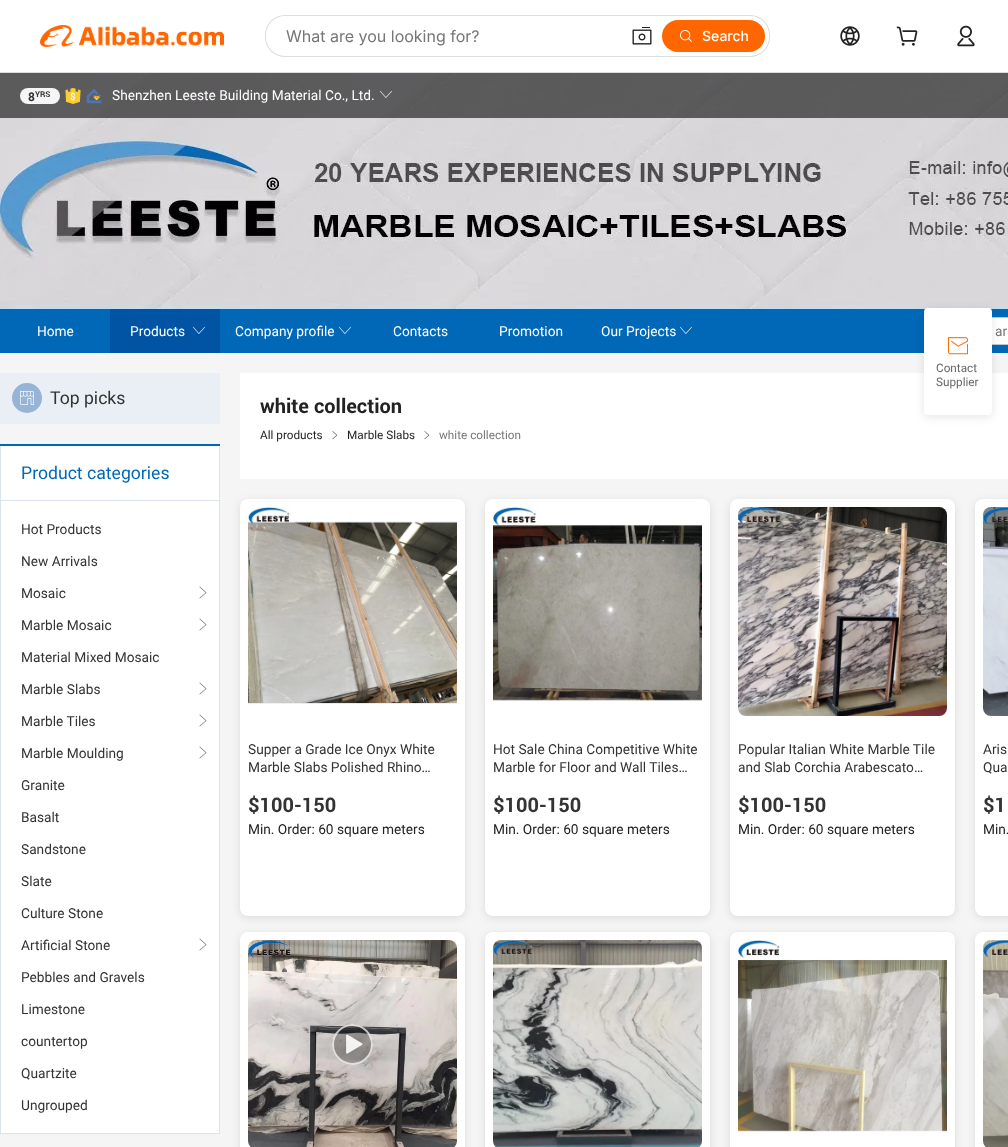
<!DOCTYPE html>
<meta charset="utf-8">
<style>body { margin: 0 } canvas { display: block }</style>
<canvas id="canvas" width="1008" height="1147"></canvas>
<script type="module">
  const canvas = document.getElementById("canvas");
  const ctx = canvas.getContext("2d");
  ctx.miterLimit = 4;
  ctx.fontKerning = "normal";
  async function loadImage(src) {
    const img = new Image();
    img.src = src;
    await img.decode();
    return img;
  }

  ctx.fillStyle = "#ffffff";
  ctx.fillRect(0, 0, 1008, 1147);
  ctx.fillStyle = "#dddddd";
  ctx.fillRect(0, 72, 1008, 1);
  ctx.drawImage(await loadImage("img1.png"), 40, 25, 184, 22);
  ctx.beginPath();
  ctx.roundRect(265, 15, 505, 42, 20);
  ctx.fill();
  ctx.fillStyle = "#ffffff";
  ctx.beginPath();
  ctx.roundRect(266, 16, 503, 40, 19);
  ctx.fill();
  ctx.font = "16px Inter";
  ctx.fillStyle = "#767676";
  ctx.fillText("What are you looking for?", 286, 42);
  ctx.drawImage(await loadImage("img2.png"), 632, 27, 20, 18);
  ctx.fillStyle = "#ff6600";
  ctx.beginPath();
  ctx.roundRect(662, 20, 103, 32, 16);
  ctx.fill();
  ctx.drawImage(await loadImage("img3.png"), 680, 30, 12, 12);
  ctx.font = "500 14px Inter";
  ctx.fillStyle = "#ffffff";
  ctx.fillText("Search", 702, 41);
  ctx.drawImage(await loadImage("img4.png"), 840, 26, 20, 20);
  ctx.drawImage(await loadImage("img5.png"), 896, 26, 22, 20);
  ctx.drawImage(await loadImage("img6.png"), 957, 25, 18, 22);
  ctx.drawImage(await loadImage("img7.png"), 0, 73, 1008, 236);
  ctx.fillStyle = "rgba(51, 51, 51, 0.2)";
  ctx.fillRect(0, 73, 1008, 45);
  ctx.fillStyle = "rgba(0, 0, 0, 0.5)";
  ctx.fillRect(0, 73, 1008, 45);
  ctx.fillStyle = "#f5f5f5";
  ctx.beginPath();
  ctx.roundRect(20, 88, 40, 16, 8);
  ctx.fill();
  ctx.font = "bold 12px Roboto";
  ctx.fillStyle = "#333333";
  ctx.fillText("8", 28, 101);
  ctx.font = "bold 8px Roboto";
  ctx.fillText("YRS", 35, 97);
  ctx.drawImage(await loadImage("img8.png"), 65, 88, 16, 16);
  ctx.drawImage(await loadImage("img9.png"), 86, 89, 16, 15);
  ctx.font = "14px Roboto";
  ctx.fillStyle = "#ffffff";
  ctx.fillText("Shenzhen Leeste Building Material Co., Ltd.", 112, 100);
  ctx.drawImage(await loadImage("img10.png"), 380, 91, 12, 7);
  ctx.fillStyle = "#0068b7";
  ctx.fillRect(0, 309, 1008, 44);
  ctx.fillStyle = "#ffffff";
  ctx.fillText("Home", 37, 336);
  ctx.fillStyle = "#0054a3";
  ctx.fillRect(110, 309, 110, 44);
  ctx.fillStyle = "#ffffff";
  ctx.fillText("Products", 130, 336);
  ctx.drawImage(await loadImage("img11.png"), 193, 327, 12, 7);
  ctx.fillText("Company profile", 235, 336);
  ctx.drawImage(await loadImage("img12.png"), 339, 327, 12, 7);
  ctx.fillText("Contacts", 393, 336);
  ctx.fillText("Promotion", 499, 336);
  ctx.fillText("Our Projects", 601, 336);
  ctx.drawImage(await loadImage("img12.png"), 680, 327, 12, 7);
  ctx.fillStyle = "#c4c6cf";
  ctx.beginPath();
  ctx.moveTo(985, 317);
  ctx.lineTo(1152, 317);
  ctx.lineTo(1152, 345);
  ctx.lineTo(985, 345);
  ctx.bezierCurveTo(977, 345, 971, 339, 971, 331);
  ctx.bezierCurveTo(971, 323, 977, 317, 985, 317);
  ctx.closePath();
  ctx.moveTo(985, 318);
  ctx.lineTo(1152, 318);
  ctx.lineTo(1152, 344);
  ctx.lineTo(985, 344);
  ctx.bezierCurveTo(978, 344, 972, 338, 972, 331);
  ctx.bezierCurveTo(972, 324, 978, 318, 985, 318);
  ctx.closePath();
  ctx.fill("evenodd");
  ctx.fillStyle = "#ffffff";
  ctx.fillRect(992, 318, 16, 26);
  ctx.fillStyle = "#767676";
  ctx.fillText("ar", 995, 336);
  ctx.fillStyle = "#f5f5f5";
  ctx.fillRect(0, 353, 1008, 794);
  ctx.fillStyle = "#e9eff5";
  ctx.fillRect(0, 373, 220, 51);
  ctx.fillStyle = "#97b3d5";
  ctx.beginPath();
  ctx.arc(27, 398, 15, 0, Math.PI * 2);
  ctx.fill();
  ctx.drawImage(await loadImage("img13.png"), 20, 391, 14, 14);
  ctx.font = "18px Roboto";
  ctx.fillStyle = "#333333";
  ctx.fillText("Top picks", 50, 404);
  ctx.fillStyle = "#ffffff";
  ctx.fillRect(1, 446, 218, 687);
  ctx.fillStyle = "#0068b7";
  ctx.fillRect(0, 444, 220, 2);
  ctx.fillStyle = "#dbe3ef";
  ctx.fillRect(219, 446, 1, 688);
  ctx.fillRect(0, 1133, 220, 1);
  ctx.fillRect(0, 446, 1, 688);
  ctx.fillRect(1, 500, 218, 1);
  ctx.fillStyle = "#0068b7";
  ctx.fillText("Product categories", 21, 479);
  ctx.font = "14px Roboto";
  ctx.fillStyle = "#333333";
  ctx.fillText("Hot Products", 21, 534);
  ctx.fillText("New Arrivals", 21, 566);
  ctx.fillText("Mosaic", 21, 598);
  ctx.drawImage(await loadImage("img14.png"), 199, 586, 8, 13);
  ctx.fillText("Marble Mosaic", 21, 630);
  ctx.drawImage(await loadImage("img14.png"), 199, 618, 8, 13);
  ctx.fillText("Material Mixed Mosaic", 21, 662);
  ctx.fillText("Marble Slabs", 21, 694);
  ctx.drawImage(await loadImage("img14.png"), 199, 682, 8, 13);
  ctx.fillText("Marble Tiles", 21, 726);
  ctx.drawImage(await loadImage("img14.png"), 199, 714, 8, 13);
  ctx.fillText("Marble Moulding", 21, 758);
  ctx.drawImage(await loadImage("img14.png"), 199, 746, 8, 13);
  ctx.fillText("Granite", 21, 790);
  ctx.fillText("Basalt", 21, 822);
  ctx.fillText("Sandstone", 21, 854);
  ctx.fillText("Slate", 21, 886);
  ctx.fillText("Culture Stone", 21, 918);
  ctx.fillText("Artificial Stone", 21, 950);
  ctx.drawImage(await loadImage("img14.png"), 199, 938, 8, 13);
  ctx.fillText("Pebbles and Gravels", 21, 982);
  ctx.fillText("Limestone", 21, 1014);
  ctx.fillText("countertop", 21, 1046);
  ctx.fillText("Quartzite", 21, 1078);
  ctx.fillText("Ungrouped", 21, 1110);
  ctx.fillStyle = "#ffffff";
  ctx.fillRect(240, 373, 768, 106);
  ctx.font = "bold 20px Roboto";
  ctx.fillStyle = "#222222";
  ctx.fillText("white collection", 260, 413);
  ctx.font = "12px Roboto";
  ctx.fillText("All products", 260, 439);
  ctx.drawImage(await loadImage("img15.png"), 332, 431, 6, 9);
  ctx.fillText("Marble Slabs", 347, 439);
  ctx.drawImage(await loadImage("img16.png"), 424, 431, 6, 9);
  ctx.fillStyle = "#767676";
  ctx.fillText("white collection", 439, 439);
  ctx.fillStyle = "rgba(0, 0, 0, 0.1)";
  ctx.filter = "blur(4px)";
  ctx.beginPath();
  ctx.roundRect(240, 501, 225, 417, 8);
  ctx.fill();
  ctx.filter = "none";
  ctx.fillStyle = "#ffffff";
  ctx.beginPath();
  ctx.roundRect(240, 499, 225, 417, 8);
  ctx.fill();
  ctx.drawImage(await loadImage("img17.png"), 248, 507, 209, 198);
  ctx.font = "14px Roboto";
  ctx.fillStyle = "#333333";
  ctx.fillText("Supper a Grade Ice Onyx White", 248, 754);
  ctx.fillText("Marble Slabs Polished Rhino…", 248, 772);
  ctx.font = "bold 20px Roboto";
  ctx.fillText("$100-150", 248, 812);
  ctx.font = "14px Roboto";
  ctx.fillStyle = "#222222";
  ctx.fillText("Min. Order: 60 square meters", 248, 834);
  ctx.fillStyle = "rgba(0, 0, 0, 0.1)";
  ctx.filter = "blur(4px)";
  ctx.beginPath();
  ctx.roundRect(485, 501, 225, 417, 8);
  ctx.fill();
  ctx.filter = "none";
  ctx.fillStyle = "#ffffff";
  ctx.beginPath();
  ctx.roundRect(485, 499, 225, 417, 8);
  ctx.fill();
  ctx.drawImage(await loadImage("img18.png"), 493, 507, 209, 195);
  ctx.fillStyle = "#333333";
  ctx.fillText("Hot Sale China Competitive White", 493, 754);
  ctx.fillText("Marble for Floor and Wall Tiles…", 493, 772);
  ctx.font = "bold 20px Roboto";
  ctx.fillText("$100-150", 493, 812);
  ctx.font = "14px Roboto";
  ctx.fillStyle = "#222222";
  ctx.fillText("Min. Order: 60 square meters", 493, 834);
  ctx.fillStyle = "rgba(0, 0, 0, 0.1)";
  ctx.filter = "blur(4px)";
  ctx.beginPath();
  ctx.roundRect(730, 501, 225, 417, 8);
  ctx.fill();
  ctx.filter = "none";
  ctx.fillStyle = "#ffffff";
  ctx.beginPath();
  ctx.roundRect(730, 499, 225, 417, 8);
  ctx.fill();
  ctx.drawImage(await loadImage("img19.png"), 738, 507, 209, 209);
  ctx.fillStyle = "#333333";
  ctx.fillText("Popular Italian White Marble Tile", 738, 754);
  ctx.fillText("and Slab Corchia Arabescato…", 738, 772);
  ctx.font = "bold 20px Roboto";
  ctx.fillText("$100-150", 738, 812);
  ctx.font = "14px Roboto";
  ctx.fillStyle = "#222222";
  ctx.fillText("Min. Order: 60 square meters", 738, 834);
  ctx.fillStyle = "rgba(0, 0, 0, 0.1)";
  ctx.filter = "blur(4px)";
  ctx.beginPath();
  ctx.roundRect(975, 501, 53, 417, 8);
  ctx.fill();
  ctx.filter = "none";
  ctx.fillStyle = "#ffffff";
  ctx.beginPath();
  ctx.roundRect(975, 499, 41, 417, 8);
  ctx.fill();
  ctx.drawImage(await loadImage("img20.png"), 983, 507, 25, 209);
  ctx.fillStyle = "#333333";
  ctx.fillText("Aris", 983, 754);
  ctx.fillText("Qua", 983, 772);
  ctx.font = "bold 20px Roboto";
  ctx.fillText("$1", 983, 812);
  ctx.font = "14px Roboto";
  ctx.fillStyle = "#222222";
  ctx.fillText("Min.", 983, 834);
  ctx.fillStyle = "rgba(0, 0, 0, 0.1)";
  ctx.filter = "blur(4px)";
  ctx.beginPath();
  ctx.roundRect(240, 934, 225, 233, 8);
  ctx.fill();
  ctx.filter = "none";
  ctx.fillStyle = "#ffffff";
  ctx.beginPath();
  ctx.roundRect(240, 932, 225, 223, 8);
  ctx.fill();
  ctx.drawImage(await loadImage("img21.png"), 248, 940, 209, 207);
  ctx.fillStyle = "rgba(0, 0, 0, 0.27)";
  ctx.beginPath();
  ctx.arc(352.5, 1044.5, 20.5, 0, Math.PI * 2);
  ctx.fill();
  ctx.beginPath();
  ctx.arc(352.5, 1044.5, 19.5, 0, Math.PI * 2);
  ctx.strokeStyle = "rgba(255, 255, 255, 0.72)";
  ctx.lineWidth = 2;
  ctx.stroke();
  ctx.drawImage(await loadImage("img22.png"), 346, 1034, 17, 20);
  ctx.fillStyle = "rgba(0, 0, 0, 0.1)";
  ctx.filter = "blur(4px)";
  ctx.beginPath();
  ctx.roundRect(485, 934, 225, 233, 8);
  ctx.fill();
  ctx.filter = "none";
  ctx.fillStyle = "#ffffff";
  ctx.beginPath();
  ctx.roundRect(485, 932, 225, 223, 8);
  ctx.fill();
  ctx.drawImage(await loadImage("img23.png"), 493, 940, 209, 207);
  ctx.fillStyle = "rgba(0, 0, 0, 0.1)";
  ctx.filter = "blur(4px)";
  ctx.beginPath();
  ctx.roundRect(730, 934, 225, 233, 8);
  ctx.fill();
  ctx.filter = "none";
  ctx.fillStyle = "#ffffff";
  ctx.beginPath();
  ctx.roundRect(730, 932, 225, 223, 8);
  ctx.fill();
  ctx.drawImage(await loadImage("img24.png"), 738, 940, 209, 192);
  ctx.fillStyle = "rgba(0, 0, 0, 0.1)";
  ctx.filter = "blur(4px)";
  ctx.beginPath();
  ctx.roundRect(975, 934, 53, 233, 8);
  ctx.fill();
  ctx.filter = "none";
  ctx.fillStyle = "#ffffff";
  ctx.beginPath();
  ctx.roundRect(975, 932, 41, 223, 8);
  ctx.fill();
  ctx.drawImage(await loadImage("img25.png"), 983, 940, 25, 207);
  ctx.fillStyle = "rgba(0, 0, 0, 0.1)";
  ctx.filter = "blur(5px)";
  ctx.beginPath();
  ctx.roundRect(924, 310, 68, 107, 4);
  ctx.fill();
  ctx.filter = "none";
  ctx.fillStyle = "#ffffff";
  ctx.beginPath();
  ctx.roundRect(924, 308, 68, 107, 4);
  ctx.fill();
  ctx.drawImage(await loadImage("img26.png"), 948, 337, 20, 18);
  ctx.font = "12px Roboto";
  ctx.fillStyle = "#666666";
  ctx.fillText("Contact", 936, 372);
  ctx.fillText("Supplier", 936, 386);
</script>
